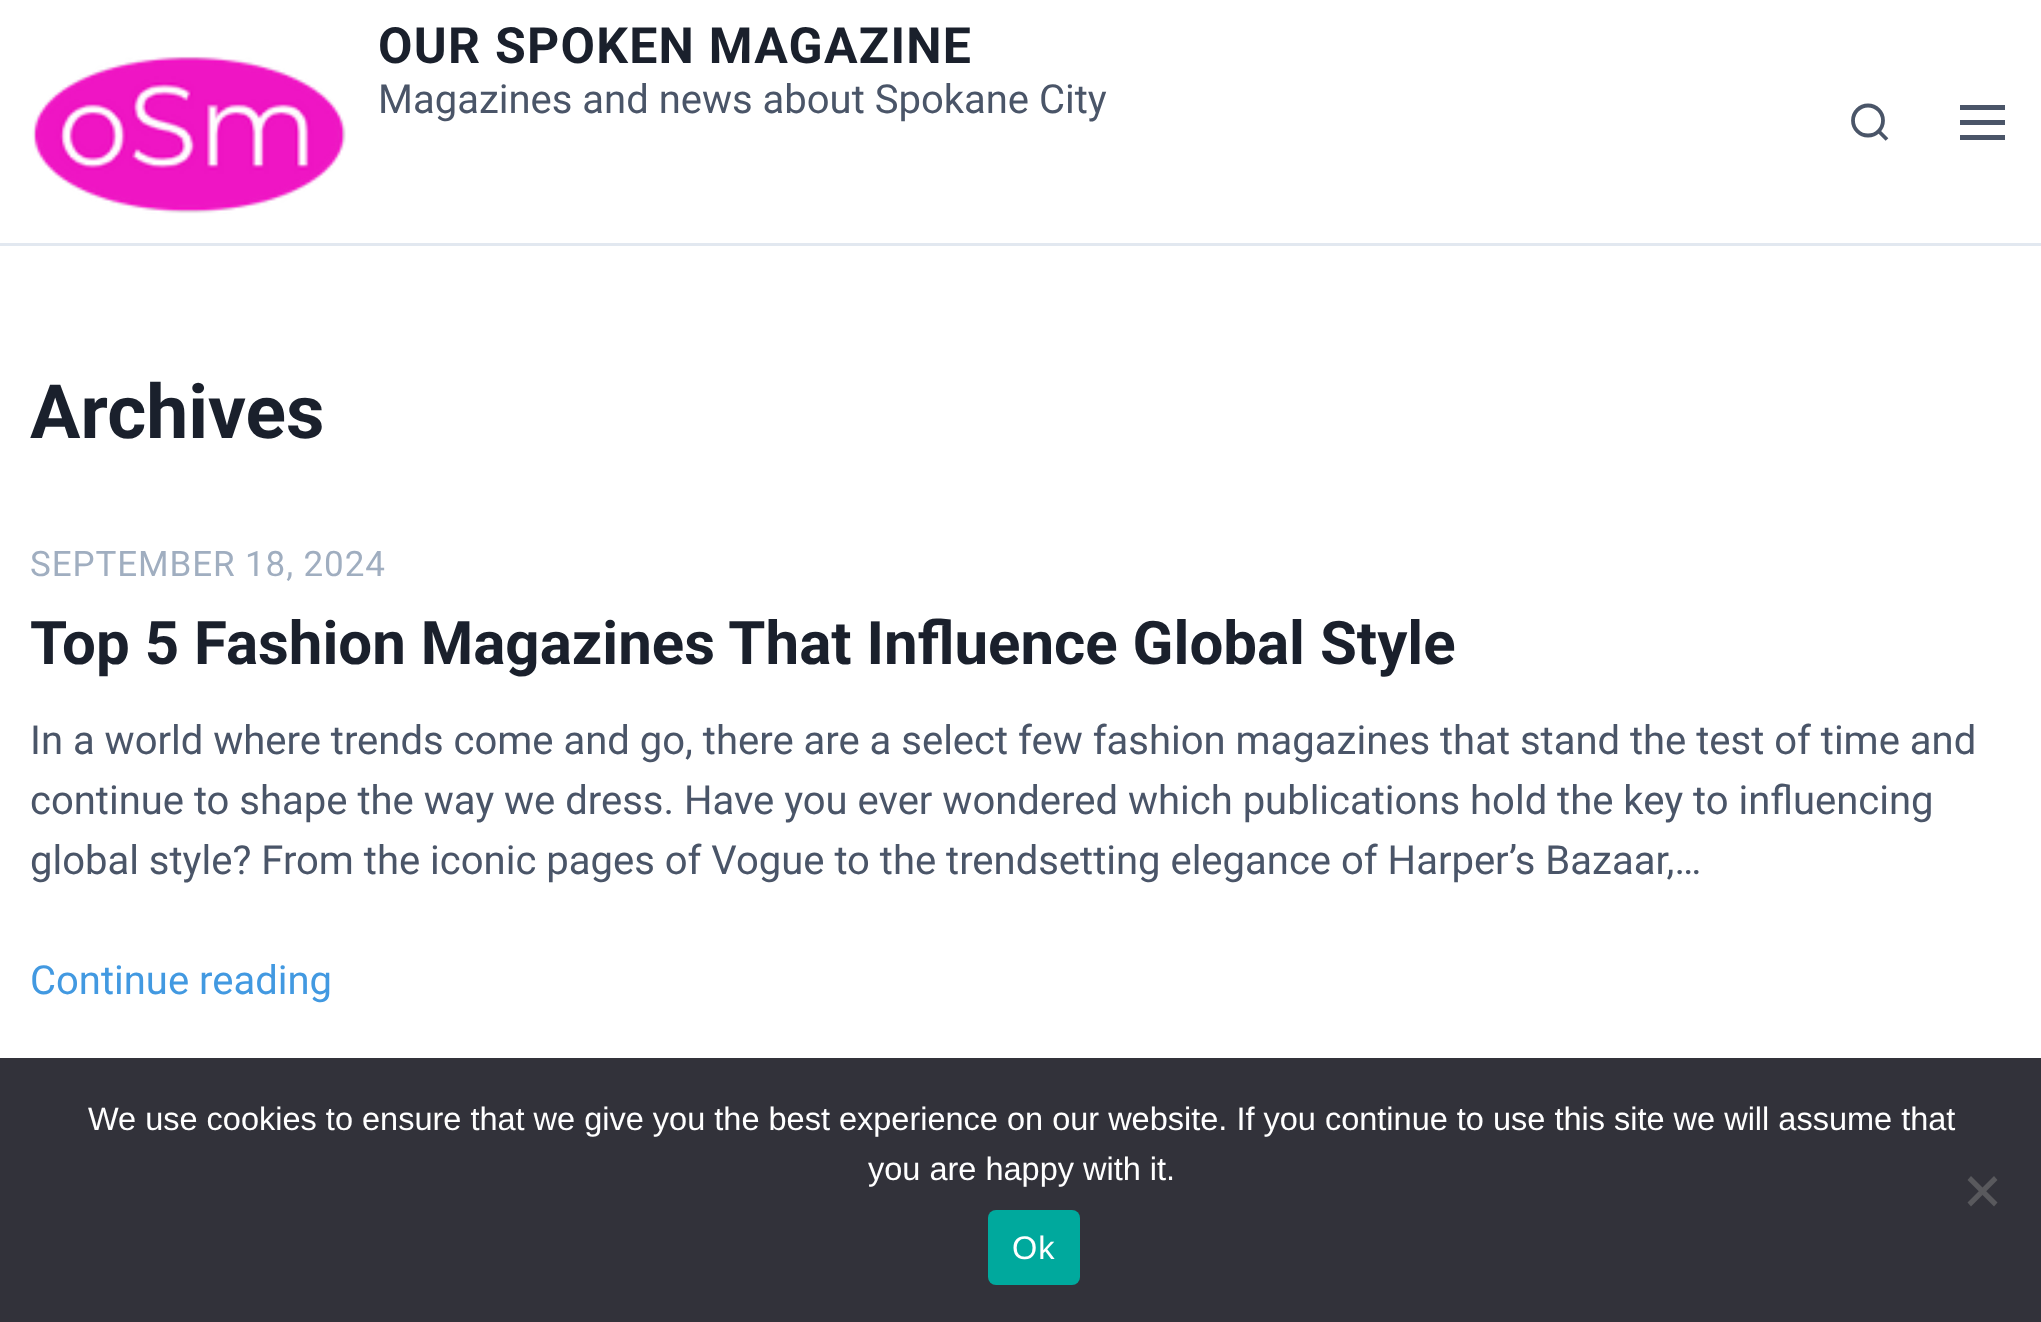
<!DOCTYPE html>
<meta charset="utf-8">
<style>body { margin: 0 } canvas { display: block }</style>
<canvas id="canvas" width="2041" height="1322"></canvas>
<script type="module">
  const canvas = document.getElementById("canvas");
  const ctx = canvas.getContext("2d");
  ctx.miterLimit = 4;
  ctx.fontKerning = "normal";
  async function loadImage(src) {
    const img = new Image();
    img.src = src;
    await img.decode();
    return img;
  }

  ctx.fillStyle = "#ffffff";
  ctx.fillRect(0, 0, 2041, 1322);
  ctx.fillStyle = "#e2e8f0";
  ctx.fillRect(0, 243, 2041, 3);
  ctx.drawImage(await loadImage("img1.png"), 32, 56, 314, 158);
  ctx.letterSpacing = "1.25px";
  ctx.font = "bold 50px Roboto";
  ctx.fillStyle = "#1a202c";
  ctx.fillText("OUR SPOKEN MAGAZINE", 378, 63);
  ctx.letterSpacing = "0px";
  ctx.font = "40px Roboto";
  ctx.fillStyle = "#4a5568";
  ctx.fillText("Magazines and news about Spokane City", 378, 113);
  ctx.beginPath();
  ctx.arc(1868, 120.5, 15, 0, Math.PI * 2);
  ctx.strokeStyle = "#4a5568";
  ctx.lineWidth = 3.8;
  ctx.stroke();
  ctx.beginPath();
  ctx.moveTo(1887, 139.5);
  ctx.lineTo(1878.5, 131);
  ctx.stroke();
  ctx.fillRect(1960, 120, 45, 5);
  ctx.fillRect(1960, 105, 45, 5);
  ctx.fillRect(1960, 135, 45, 5);
  ctx.font = "bold 75px Roboto";
  ctx.fillStyle = "#1a202c";
  ctx.fillText("Archives", 30, 438);
  ctx.letterSpacing = "0.9px";
  ctx.font = "35px Roboto";
  ctx.fillStyle = "#a0aec0";
  ctx.fillText("SEPTEMBER 18, 2024", 30, 576);
  ctx.letterSpacing = "0px";
  ctx.font = "bold 60px Roboto";
  ctx.fillStyle = "#1a202c";
  ctx.fillText("Top 5 Fashion Magazines That Influence Global Style", 30, 664);
  ctx.font = "40px Roboto";
  ctx.fillStyle = "#4a5568";
  ctx.fillText("In a world where trends come and go, there are a select few fashion magazines that stand the test of time and", 30, 754);
  ctx.fillText("continue to shape the way we dress. Have you ever wondered which publications hold the key to influencing", 30, 814);
  ctx.fillText("global style? From the iconic pages of Vogue to the trendsetting elegance of Harper’s Bazaar,…", 30, 874);
  ctx.fillStyle = "#4299e1";
  ctx.fillText("Continue reading", 30, 994);
  ctx.fillStyle = "#32323a";
  ctx.fillRect(0, 1058, 2041, 264);
  ctx.font = "32.5px Liberation Sans";
  ctx.fillStyle = "#ffffff";
  ctx.fillText("We use cookies to ensure that we give you the best experience on our website. If you continue to use this site we will assume that", 88, 1130);
  ctx.fillText("you are happy with it.", 868, 1180);
  ctx.fillStyle = "#59595d";
  ctx.beginPath();
  ctx.moveTo(1994, 1176);
  ctx.lineTo(1997.5, 1180);
  ctx.lineTo(1971, 1206.5);
  ctx.lineTo(1967.5, 1202.5);
  ctx.closePath();
  ctx.fill();
  ctx.beginPath();
  ctx.moveTo(1967.5, 1180);
  ctx.lineTo(1971, 1176);
  ctx.lineTo(1997.5, 1202.5);
  ctx.lineTo(1994, 1206.5);
  ctx.closePath();
  ctx.fill();
  ctx.fillStyle = "#00a99d";
  ctx.beginPath();
  ctx.roundRect(988, 1210, 92, 75, 8);
  ctx.fill();
  ctx.letterSpacing = "1px";
  ctx.fillStyle = "#ffffff";
  ctx.fillText("Ok", 1012, 1259);
</script>
